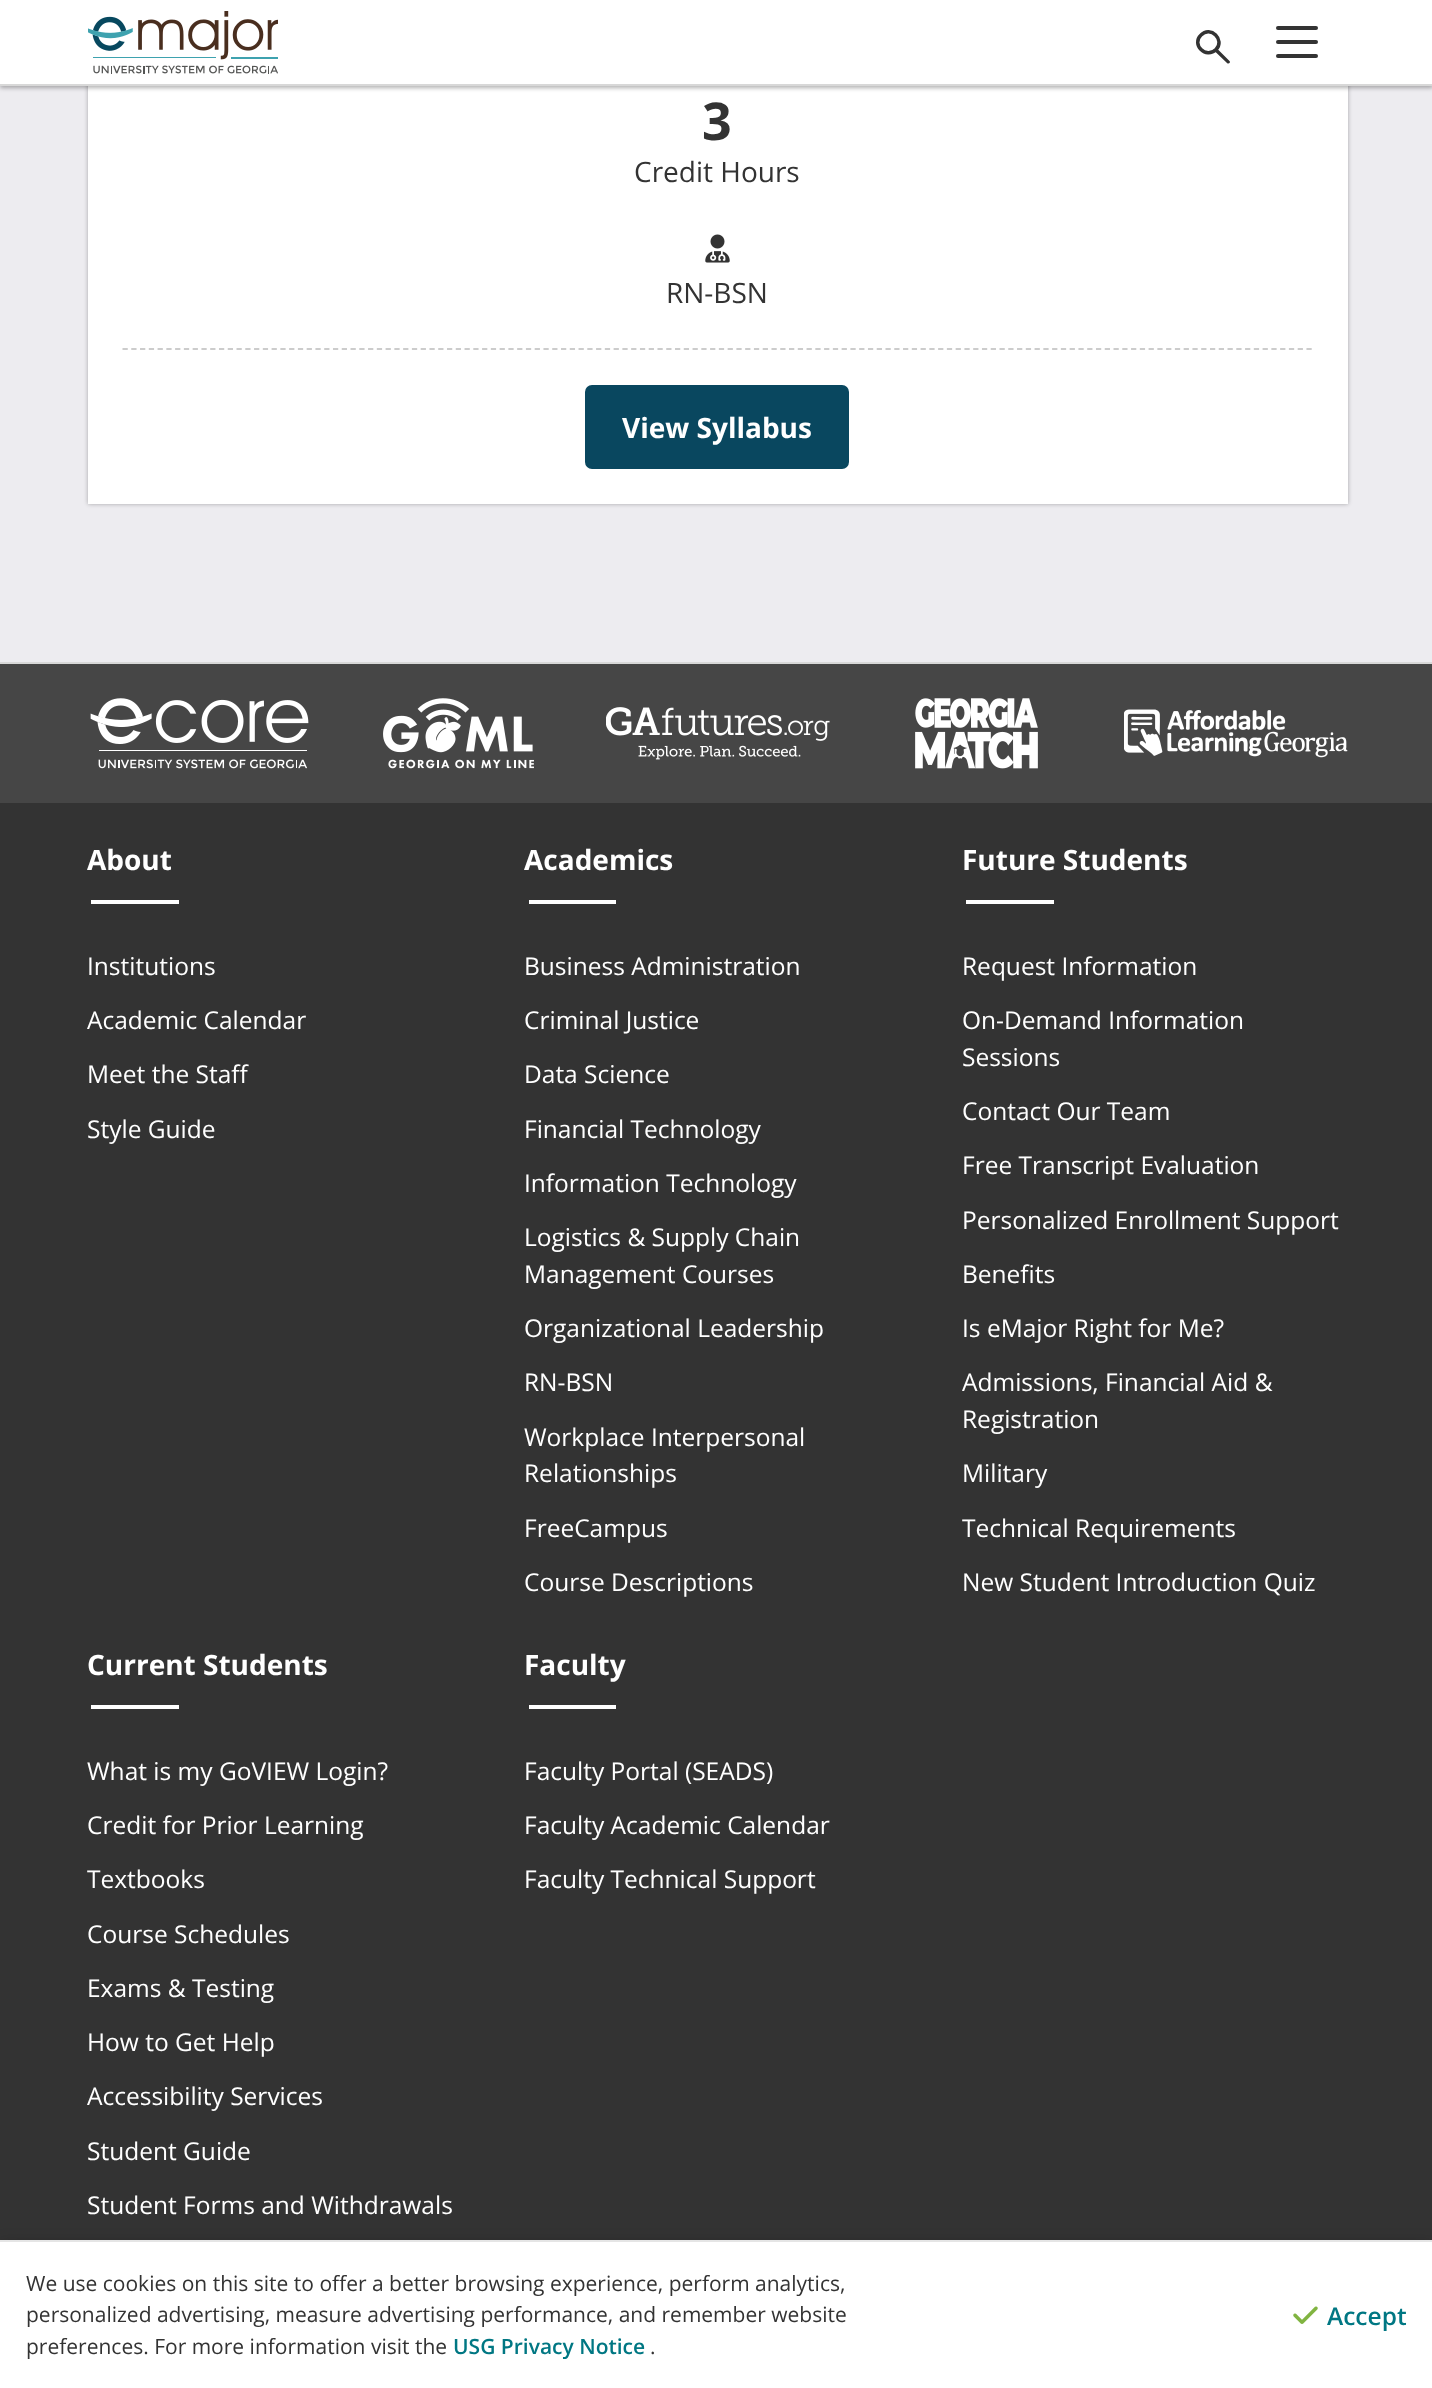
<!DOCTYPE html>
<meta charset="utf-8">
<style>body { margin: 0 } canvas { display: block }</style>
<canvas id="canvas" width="1432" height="2388"></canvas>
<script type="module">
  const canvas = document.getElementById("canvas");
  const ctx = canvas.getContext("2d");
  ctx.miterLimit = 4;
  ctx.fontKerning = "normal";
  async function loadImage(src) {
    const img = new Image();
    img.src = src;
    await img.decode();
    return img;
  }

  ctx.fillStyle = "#333333";
  ctx.fillRect(0, 0, 1432, 2388);
  ctx.fillStyle = "#edecf0";
  ctx.fillRect(0, 86, 1432, 576);
  ctx.fillStyle = "rgba(0, 0, 0, 0.3)";
  ctx.filter = "blur(2px)";
  ctx.beginPath();
  ctx.rect(88, 63, 1260, 441);
  ctx.fill();
  ctx.filter = "none";
  ctx.fillStyle = "#ffffff";
  ctx.fillRect(88, 86, 1260, 418);
  ctx.fillStyle = "rgba(0, 0, 0, 0.3)";
  ctx.filter = "blur(2px)";
  ctx.beginPath();
  ctx.rect(0, 2, 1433, 86);
  ctx.fill();
  ctx.filter = "none";
  ctx.fillStyle = "#ffffff";
  ctx.fillRect(0, 0, 1432, 84);
  ctx.fillStyle = "#d8d8d8";
  ctx.fillRect(0, 84, 1432, 2);
  ctx.drawImage(await loadImage("img1.png"), 88, 11, 190, 63);
  ctx.fillStyle = "#333333";
  ctx.beginPath();
  ctx.roundRect(1276, 54, 42, 4, 2);
  ctx.fill();
  ctx.beginPath();
  ctx.roundRect(1276, 40, 42, 4, 2);
  ctx.fill();
  ctx.beginPath();
  ctx.roundRect(1276, 26, 42, 4, 2);
  ctx.fill();
  ctx.beginPath();
  ctx.moveTo(1201, 35);
  ctx.bezierCurveTo(1210.5, 25, 1225.5, 40, 1216, 49.5);
  ctx.bezierCurveTo(1206, 59.5, 1191, 44.5, 1201, 35);
  ctx.closePath();
  ctx.strokeStyle = "#333333";
  ctx.lineWidth = 3.5;
  ctx.stroke();
  ctx.beginPath();
  ctx.moveTo(1214.5, 51);
  ctx.lineTo(1217, 48.5);
  ctx.lineTo(1229.5, 61);
  ctx.bezierCurveTo(1231, 62.5, 1228.5, 64.5, 1227, 63);
  ctx.closePath();
  ctx.fill();
  ctx.fillStyle = "#d8d8d8";
  ctx.fillRect(0, 662, 1432, 2);
  ctx.font = "bold 52px Open Sans";
  ctx.fillStyle = "#333333";
  ctx.fillText("3", 702, 140);
  ctx.font = "28px Open Sans";
  ctx.fillText("Credit Hours", 634, 182);
  ctx.drawImage(await loadImage("img2.png"), 705, 234, 25, 29);
  ctx.fillText("RN-BSN", 666, 303);
  ctx.beginPath();
  ctx.moveTo(122.5, 349);
  ctx.lineTo(1312.5, 349);
  ctx.strokeStyle = "#cccccc";
  ctx.lineWidth = 1.8;
  ctx.setLineDash([5.25, 3.52]);
  ctx.stroke();
  ctx.fillStyle = "#09475f";
  ctx.beginPath();
  ctx.roundRect(586, 386, 262, 82, 6);
  ctx.fill();
  ctx.strokeStyle = "#09475f";
  ctx.lineWidth = 2;
  ctx.setLineDash([]);
  ctx.stroke();
  ctx.font = "bold 28px Open Sans";
  ctx.fillStyle = "#ffffff";
  ctx.fillText("View Syllabus", 622, 438);
  ctx.fillStyle = "#464646";
  ctx.fillRect(0, 664, 1432, 139);
  ctx.drawImage(await loadImage("img3.png"), 90, 698, 219, 71);
  ctx.drawImage(await loadImage("img4.png"), 383, 698, 151, 71);
  ctx.drawImage(await loadImage("img5.png"), 606, 707, 224, 53);
  ctx.drawImage(await loadImage("img6.png"), 915, 698, 123, 71);
  ctx.drawImage(await loadImage("img7.png"), 1124, 709, 224, 49);
  ctx.fillStyle = "#ffffff";
  ctx.fillText("About", 87, 870);
  ctx.fillRect(91, 900, 88, 4);
  ctx.font = "24.5px Open Sans";
  ctx.fillText("Institutions", 87, 975);
  ctx.fillText("Academic Calendar", 87, 1029);
  ctx.fillText("Meet the Staff", 87, 1083);
  ctx.fillText("Style Guide", 87, 1138);
  ctx.font = "bold 28px Open Sans";
  ctx.fillText("Academics", 524, 870);
  ctx.fillRect(529, 900, 87, 4);
  ctx.font = "24.5px Open Sans";
  ctx.fillText("Business Administration", 524, 975);
  ctx.fillText("Criminal Justice", 524, 1029);
  ctx.fillText("Data Science", 524, 1083);
  ctx.fillText("Financial Technology", 524, 1138);
  ctx.fillText("Information Technology", 524, 1192);
  ctx.fillText("Logistics & Supply Chain", 524, 1246);
  ctx.fillText("Management Courses", 524, 1283);
  ctx.fillText("Organizational Leadership", 524, 1337);
  ctx.fillText("RN-BSN", 524, 1391);
  ctx.fillText("Workplace Interpersonal", 524, 1446);
  ctx.fillText("Relationships", 524, 1482);
  ctx.fillText("FreeCampus", 524, 1537);
  ctx.fillText("Course Descriptions", 524, 1591);
  ctx.font = "bold 28px Open Sans";
  ctx.fillText("Future Students", 962, 870);
  ctx.fillRect(966, 900, 88, 4);
  ctx.font = "24.5px Open Sans";
  ctx.fillText("Request Information", 962, 975);
  ctx.fillText("On-Demand Information", 962, 1029);
  ctx.fillText("Sessions", 962, 1066);
  ctx.fillText("Contact Our Team", 962, 1120);
  ctx.fillText("Free Transcript Evaluation", 962, 1174);
  ctx.fillText("Personalized Enrollment Support", 962, 1229);
  ctx.fillText("Benefits", 962, 1283);
  ctx.fillText("Is eMajor Right for Me?", 962, 1337);
  ctx.fillText("Admissions, Financial Aid &", 962, 1391);
  ctx.fillText("Registration", 962, 1428);
  ctx.fillText("Military", 962, 1482);
  ctx.fillText("Technical Requirements", 962, 1537);
  ctx.fillText("New Student Introduction Quiz", 962, 1591);
  ctx.font = "bold 28px Open Sans";
  ctx.fillText("Current Students", 87, 1675);
  ctx.fillRect(91, 1705, 88, 4);
  ctx.font = "24.5px Open Sans";
  ctx.fillText("What is my GoVIEW Login?", 87, 1780);
  ctx.fillText("Credit for Prior Learning", 87, 1834);
  ctx.fillText("Textbooks", 87, 1888);
  ctx.fillText("Course Schedules", 87, 1943);
  ctx.fillText("Exams & Testing", 87, 1997);
  ctx.fillText("How to Get Help", 87, 2051);
  ctx.fillText("Accessibility Services", 87, 2105);
  ctx.fillText("Student Guide", 87, 2160);
  ctx.fillText("Student Forms and Withdrawals", 87, 2214);
  ctx.font = "bold 28px Open Sans";
  ctx.fillText("Faculty", 524, 1675);
  ctx.fillRect(529, 1705, 87, 4);
  ctx.font = "24.5px Open Sans";
  ctx.fillText("Faculty Portal (SEADS)", 524, 1780);
  ctx.fillText("Faculty Academic Calendar", 524, 1834);
  ctx.fillText("Faculty Technical Support", 524, 1888);
  ctx.fillStyle = "rgba(0, 0, 0, 0.3)";
  ctx.filter = "blur(8px)";
  ctx.beginPath();
  ctx.rect(0, 2245, 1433, 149);
  ctx.fill();
  ctx.filter = "none";
  ctx.fillStyle = "#ffffff";
  ctx.fillRect(0, 2242, 1432, 146);
  ctx.fillStyle = "#e5e5e5";
  ctx.fillRect(0, 2240, 1432, 2);
  ctx.font = "21px Open Sans";
  ctx.fillStyle = "#333333";
  ctx.fillText("We use cookies on this site to offer a better browsing experience, perform analytics,", 26, 2291);
  ctx.fillText("personalized advertising, measure advertising performance, and remember website", 26, 2322);
  ctx.fillText("preferences. For more information visit the", 26, 2354);
  ctx.font = "600 21px Open Sans";
  ctx.fillStyle = "#007783";
  ctx.fillText("USG Privacy Notice", 453, 2354);
  ctx.font = "21px Open Sans";
  ctx.fillStyle = "#333333";
  ctx.fillText(".", 650, 2354);
  ctx.drawImage(await loadImage("img8.png"), 1293, 2306, 25, 18);
  ctx.font = "600 24.5px Open Sans";
  ctx.fillStyle = "#007783";
  ctx.fillText("Accept", 1327, 2325);
</script>
